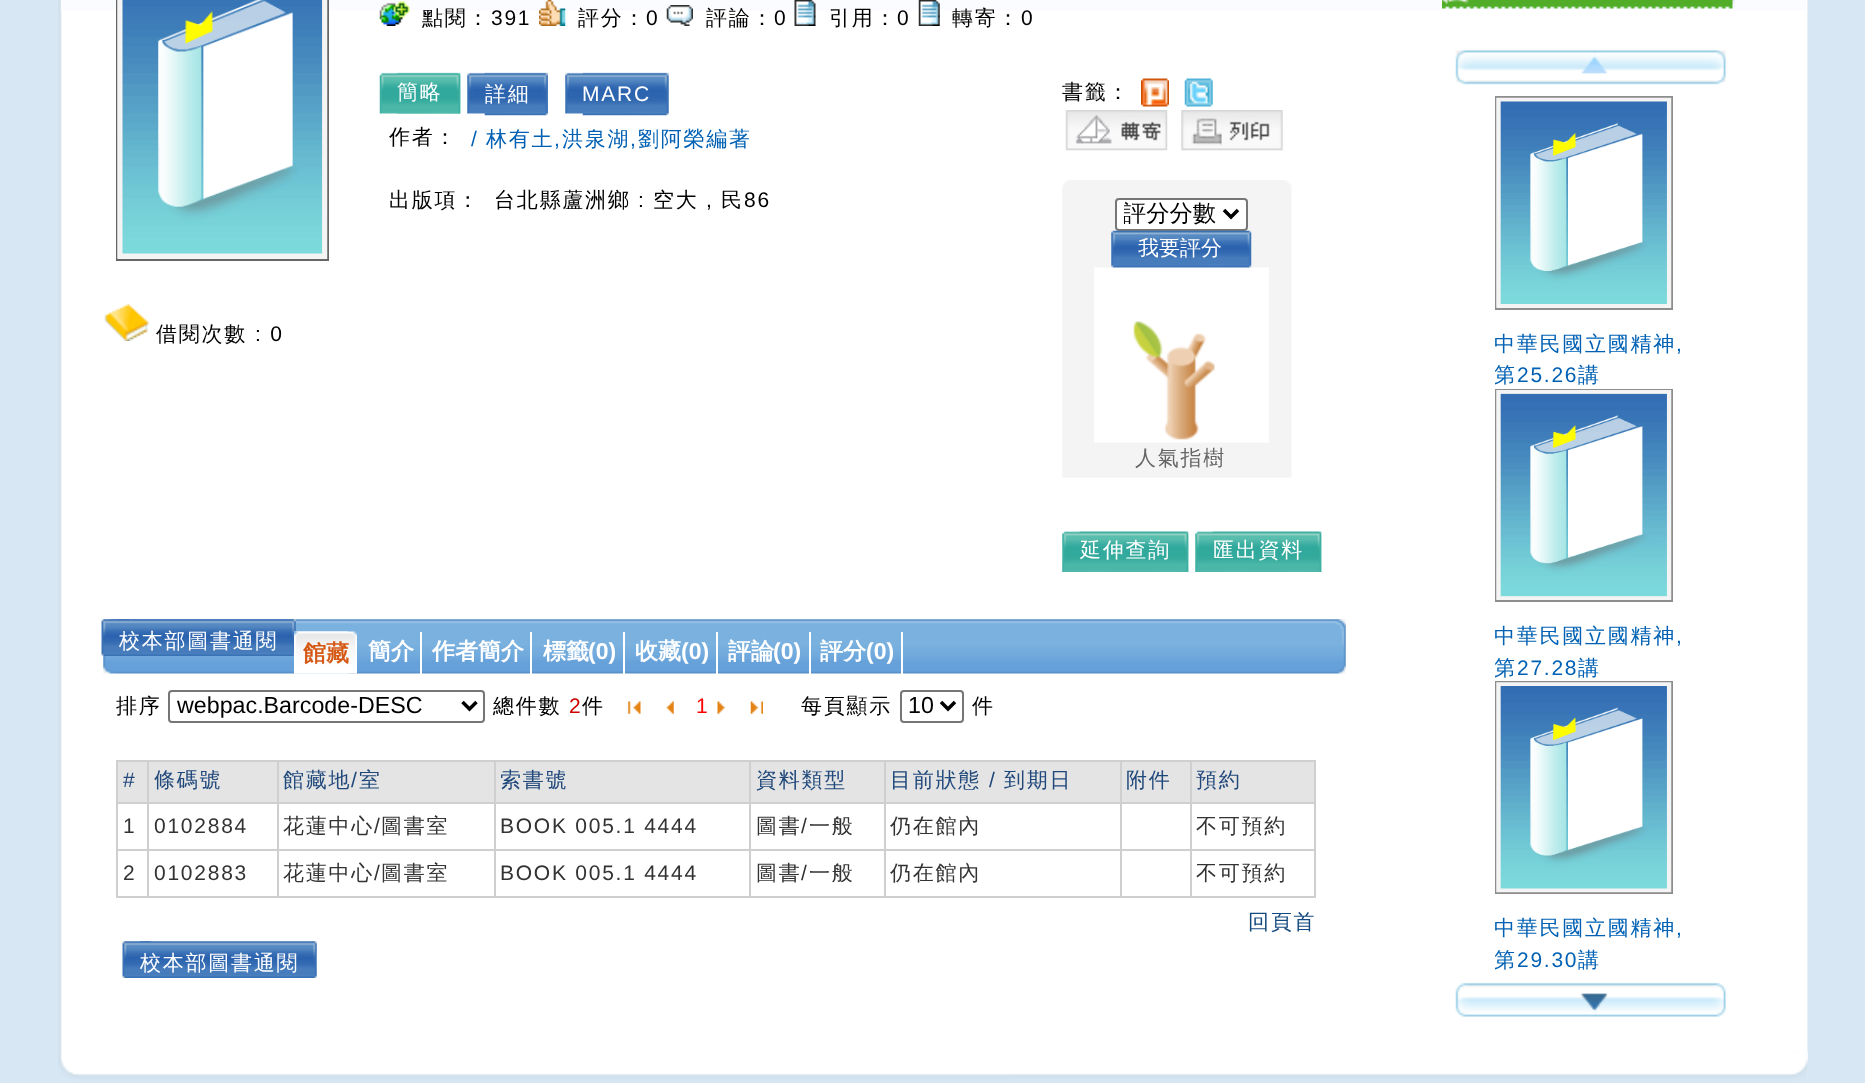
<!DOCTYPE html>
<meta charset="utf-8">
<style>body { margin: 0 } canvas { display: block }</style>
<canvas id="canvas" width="1865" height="1083"></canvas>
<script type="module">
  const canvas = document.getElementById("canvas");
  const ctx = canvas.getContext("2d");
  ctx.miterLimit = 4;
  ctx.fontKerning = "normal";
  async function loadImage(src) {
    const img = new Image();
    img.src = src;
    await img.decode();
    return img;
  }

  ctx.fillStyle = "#d7e8f4";
  ctx.fillRect(0, 0, 1865, 1083);
  ctx.drawImage(await loadImage("img1.png"), 58, 0, 1750, 1083);
  ctx.fillStyle = "#fafcff";
  ctx.fillRect(61, 0, 1745, 10);
  ctx.strokeStyle = "#666666";
  ctx.lineWidth = 2;
  ctx.strokeRect(117, -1, 211, 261);
  ctx.drawImage(await loadImage("img2.png"), 117, 0, 211, 259);
  ctx.drawImage(await loadImage("img3.png"), 104, 304, 45, 37);
  ctx.letterSpacing = "1.75px";
  ctx.font = "500 21px WenQuanYi Zen Hei";
  ctx.fillStyle = "#000000";
  ctx.fillText("借閱次數", 156, 341);
  ctx.font = "21px Liberation Sans";
  ctx.fillText(": 0", 255, 341);
  ctx.drawImage(await loadImage("img4.png"), 379, 1, 31, 25);
  ctx.font = "500 21px WenQuanYi Zen Hei";
  ctx.fillText("點閱：", 422, 25);
  ctx.font = "21px Liberation Sans";
  ctx.fillText("391", 491, 25);
  ctx.drawImage(await loadImage("img5.png"), 539, 0, 27, 26);
  ctx.font = "500 21px WenQuanYi Zen Hei";
  ctx.fillText("評分：", 578, 25);
  ctx.font = "21px Liberation Sans";
  ctx.fillText("0", 646, 25);
  ctx.drawImage(await loadImage("img6.png"), 666, 5, 27, 21);
  ctx.font = "500 21px WenQuanYi Zen Hei";
  ctx.fillText("評論：", 706, 25);
  ctx.font = "21px Liberation Sans";
  ctx.fillText("0", 774, 25);
  ctx.drawImage(await loadImage("img7.png"), 794, 0, 22, 26);
  ctx.font = "500 21px WenQuanYi Zen Hei";
  ctx.fillText("引用：", 829, 25);
  ctx.font = "21px Liberation Sans";
  ctx.fillText("0", 897, 25);
  ctx.drawImage(await loadImage("img8.png"), 918, 0, 22, 26);
  ctx.font = "500 21px WenQuanYi Zen Hei";
  ctx.fillText("轉寄：", 952, 25);
  ctx.font = "21px Liberation Sans";
  ctx.fillText("0", 1021, 25);
  ctx.drawImage(await loadImage("img9.png"), 379, 72, 82, 42);
  ctx.drawImage(await loadImage("img10.png"), 397, 72, 64, 42);
  ctx.font = "500 21px WenQuanYi Zen Hei";
  ctx.fillStyle = "#ffffff";
  ctx.fillText("簡略", 397, 99);
  ctx.drawImage(await loadImage("img11.png"), 467, 72, 81, 42);
  ctx.drawImage(await loadImage("img12.png"), 484, 72, 64, 44);
  ctx.fillText("詳細", 485, 101);
  ctx.drawImage(await loadImage("img13.png"), 565, 72, 104, 42);
  ctx.drawImage(await loadImage("img14.png"), 582, 72, 87, 44);
  ctx.font = "21px Liberation Sans";
  ctx.fillText("MARC", 582, 101);
  ctx.font = "500 21px WenQuanYi Zen Hei";
  ctx.fillStyle = "#000000";
  ctx.fillText("作者：", 389, 144);
  ctx.font = "21px Liberation Sans";
  ctx.fillStyle = "#0061b4";
  ctx.fillText("/", 471, 146);
  ctx.font = "500 21px WenQuanYi Zen Hei";
  ctx.fillText("林有土", 486, 146);
  ctx.font = "21px Liberation Sans";
  ctx.fillText(",", 554, 146);
  ctx.font = "500 21px WenQuanYi Zen Hei";
  ctx.fillText("洪泉湖", 562, 146);
  ctx.font = "21px Liberation Sans";
  ctx.fillText(",", 630, 146);
  ctx.font = "500 21px WenQuanYi Zen Hei";
  ctx.fillText("劉阿榮編著", 638, 146);
  ctx.fillStyle = "#000000";
  ctx.fillText("出版項：", 389, 207);
  ctx.fillText("台北縣蘆洲鄉", 494, 207);
  ctx.font = "21px Liberation Sans";
  ctx.fillText(":", 638, 207);
  ctx.font = "500 21px WenQuanYi Zen Hei";
  ctx.fillText("空大", 653, 207);
  ctx.font = "21px Liberation Sans";
  ctx.fillText(",", 706, 207);
  ctx.font = "500 21px WenQuanYi Zen Hei";
  ctx.fillText("民", 721, 207);
  ctx.font = "21px Liberation Sans";
  ctx.fillText("86", 744, 207);
  ctx.font = "500 21px WenQuanYi Zen Hei";
  ctx.fillText("書籤：", 1062, 99);
  ctx.drawImage(await loadImage("img15.png"), 1141, 78, 28, 29);
  ctx.drawImage(await loadImage("img16.png"), 1184, 78, 29, 29);
  ctx.drawImage(await loadImage("img17.png"), 1065, 110, 103, 41);
  ctx.drawImage(await loadImage("img18.png"), 1181, 110, 102, 41);
  ctx.drawImage(await loadImage("img19.png"), 1062, 180, 230, 298);
  ctx.fillStyle = "#ffffff";
  ctx.beginPath();
  ctx.roundRect(1116, 199, 131, 31, 3);
  ctx.fill();
  ctx.strokeStyle = "#767676";
  ctx.stroke();
  ctx.beginPath();
  ctx.moveTo(1224, 210);
  ctx.lineTo(1231, 217);
  ctx.lineTo(1238, 210);
  ctx.strokeStyle = "#000000";
  ctx.lineWidth = 3.5;
  ctx.stroke();
  ctx.save();
  ctx.beginPath();
  ctx.rect(1124, 200, 94, 29);
  ctx.clip();
  ctx.letterSpacing = "0px";
  ctx.font = "500 23.25px WenQuanYi Zen Hei";
  ctx.fillStyle = "#000000";
  ctx.fillText("評分分數", 1123, 221);
  ctx.restore();
  ctx.drawImage(await loadImage("img21.png"), 1094, 267, 175, 176);
  ctx.drawImage(await loadImage("img20.png"), 1111, 230, 141, 38);
  ctx.letterSpacing = "0px";
  ctx.fillText("我要評分", 1138, 255);
  ctx.letterSpacing = "1.75px";
  ctx.fillStyle = "#666666";
  ctx.fillText("人氣指樹", 1135, 465);
  ctx.drawImage(await loadImage("img22.png"), 1062, 531, 127, 41);
  ctx.drawImage(await loadImage("img23.png"), 1079, 531, 110, 41);
  ctx.fillStyle = "#ffffff";
  ctx.fillText("延伸查詢", 1080, 557);
  ctx.drawImage(await loadImage("img22.png"), 1195, 531, 127, 41);
  ctx.drawImage(await loadImage("img23.png"), 1212, 531, 110, 41);
  ctx.fillText("匯出資料", 1213, 557);
  ctx.drawImage(await loadImage("img26.png"), 103, 619, 1243, 55);
  ctx.drawImage(await loadImage("img24.png"), 101, 619, 31, 37);
  ctx.drawImage(await loadImage("img25.png"), 119, 619, 177, 37);
  ctx.fillText("校本部圖書通閱", 119, 648);
  ctx.drawImage(await loadImage("img27.png"), 294, 631, 63, 43);
  ctx.drawImage(await loadImage("img28.png"), 294, 631, 55, 43);
  ctx.letterSpacing = "0px";
  ctx.font = "bold 23px WenQuanYi Zen Hei";
  ctx.fillStyle = "#d55915";
  ctx.fillText("館藏", 303, 661);
  ctx.fillStyle = "#ffffff";
  ctx.fillRect(420, 632, 2, 42);
  ctx.fillText("簡介", 368, 659);
  ctx.fillRect(530, 632, 2, 42);
  ctx.fillText("作者簡介", 432, 659);
  ctx.fillRect(623, 632, 2, 42);
  ctx.fillText("標籤", 543, 659);
  ctx.font = "bold 23px Liberation Sans";
  ctx.fillText("(0)", 588, 659);
  ctx.fillRect(716, 632, 2, 42);
  ctx.font = "bold 23px WenQuanYi Zen Hei";
  ctx.fillText("收藏", 635, 659);
  ctx.font = "bold 23px Liberation Sans";
  ctx.fillText("(0)", 681, 659);
  ctx.fillRect(809, 632, 2, 42);
  ctx.font = "bold 23px WenQuanYi Zen Hei";
  ctx.fillText("評論", 728, 659);
  ctx.font = "bold 23px Liberation Sans";
  ctx.fillText("(0)", 773, 659);
  ctx.fillRect(901, 632, 2, 42);
  ctx.font = "bold 23px WenQuanYi Zen Hei";
  ctx.fillText("評分", 820, 659);
  ctx.font = "bold 23px Liberation Sans";
  ctx.fillText("(0)", 866, 659);
  ctx.letterSpacing = "1.75px";
  ctx.font = "500 21px WenQuanYi Zen Hei";
  ctx.fillStyle = "#000000";
  ctx.fillText("排序", 116, 713);
  ctx.beginPath();
  ctx.roundRect(169, 691, 315, 31, 3);
  ctx.strokeStyle = "#767676";
  ctx.lineWidth = 2;
  ctx.stroke();
  ctx.beginPath();
  ctx.moveTo(462.5, 702);
  ctx.lineTo(469.5, 709);
  ctx.lineTo(476.5, 702);
  ctx.strokeStyle = "#000000";
  ctx.lineWidth = 3.5;
  ctx.stroke();
  ctx.letterSpacing = "0px";
  ctx.font = "23.25px Liberation Sans";
  ctx.fillText("webpac.Barcode-DESC", 177, 713);
  ctx.letterSpacing = "1.75px";
  ctx.font = "500 21px WenQuanYi Zen Hei";
  ctx.fillText("總件數", 493, 713);
  ctx.font = "21px Liberation Sans";
  ctx.fillStyle = "#cc0000";
  ctx.fillText("2", 569, 713);
  ctx.font = "500 21px WenQuanYi Zen Hei";
  ctx.fillStyle = "#000000";
  ctx.fillText("件", 582, 713);
  ctx.drawImage(await loadImage("img29.png"), 628, 701, 13, 13);
  ctx.drawImage(await loadImage("img30.png"), 666, 701, 8, 13);
  ctx.font = "21px Liberation Sans";
  ctx.fillStyle = "#ff0000";
  ctx.fillText("1", 696, 713);
  ctx.drawImage(await loadImage("img31.png"), 717, 701, 8, 13);
  ctx.drawImage(await loadImage("img32.png"), 750, 701, 13, 13);
  ctx.font = "500 21px WenQuanYi Zen Hei";
  ctx.fillStyle = "#000000";
  ctx.fillText("每頁顯示", 801, 713);
  ctx.beginPath();
  ctx.roundRect(901, 691, 62, 31, 3);
  ctx.strokeStyle = "#767676";
  ctx.lineWidth = 2;
  ctx.stroke();
  ctx.beginPath();
  ctx.moveTo(941, 702);
  ctx.lineTo(948, 709);
  ctx.lineTo(955, 702);
  ctx.strokeStyle = "#000000";
  ctx.lineWidth = 3.5;
  ctx.stroke();
  ctx.letterSpacing = "0px";
  ctx.font = "23.25px Liberation Sans";
  ctx.fillText("10", 908, 713);
  ctx.letterSpacing = "1.75px";
  ctx.font = "500 21px WenQuanYi Zen Hei";
  ctx.fillText("件", 972, 713);
  ctx.fillStyle = "#cfcfcf";
  ctx.fillRect(116, 760, 1200, 2);
  ctx.fillRect(1314, 760, 2, 138);
  ctx.fillRect(116, 760, 2, 138);
  ctx.fillStyle = "#e4e4e4";
  ctx.fillRect(118, 762, 29, 40);
  ctx.fillStyle = "#cfcfcf";
  ctx.fillRect(1190, 896, 126, 2);
  ctx.fillRect(1190, 849, 2, 49);
  ctx.fillRect(1190, 849, 126, 2);
  ctx.fillRect(1190, 802, 2, 49);
  ctx.fillRect(1190, 802, 126, 2);
  ctx.fillRect(1190, 760, 2, 43);
  ctx.fillRect(1120, 896, 72, 2);
  ctx.fillRect(1120, 849, 2, 49);
  ctx.fillRect(1120, 849, 72, 2);
  ctx.fillRect(1120, 802, 2, 49);
  ctx.fillRect(1120, 802, 72, 2);
  ctx.fillRect(1120, 760, 2, 43);
  ctx.fillRect(884, 896, 238, 2);
  ctx.fillRect(884, 849, 2, 49);
  ctx.fillRect(884, 849, 238, 2);
  ctx.fillRect(884, 802, 2, 49);
  ctx.fillRect(884, 802, 238, 2);
  ctx.fillRect(884, 760, 2, 43);
  ctx.fillRect(749, 896, 137, 2);
  ctx.fillRect(749, 849, 2, 49);
  ctx.fillRect(749, 849, 137, 2);
  ctx.fillRect(749, 802, 2, 49);
  ctx.fillRect(749, 802, 137, 2);
  ctx.fillRect(749, 760, 2, 43);
  ctx.fillRect(494, 896, 257, 2);
  ctx.fillRect(494, 849, 2, 49);
  ctx.fillRect(494, 849, 257, 2);
  ctx.fillRect(494, 802, 2, 49);
  ctx.fillRect(494, 802, 257, 2);
  ctx.fillRect(494, 760, 2, 43);
  ctx.fillRect(277, 896, 218, 2);
  ctx.fillRect(277, 849, 2, 49);
  ctx.fillRect(277, 849, 218, 2);
  ctx.fillRect(277, 802, 2, 49);
  ctx.fillRect(277, 802, 218, 2);
  ctx.fillRect(277, 760, 2, 43);
  ctx.fillRect(147, 896, 131, 2);
  ctx.fillRect(147, 849, 2, 49);
  ctx.fillRect(147, 849, 131, 2);
  ctx.fillRect(147, 802, 2, 49);
  ctx.fillRect(147, 802, 131, 2);
  ctx.fillRect(147, 760, 2, 43);
  ctx.fillRect(116, 802, 33, 2);
  ctx.font = "21px Liberation Sans";
  ctx.fillStyle = "#20487b";
  ctx.fillText("#", 123, 787);
  ctx.fillStyle = "#e4e4e4";
  ctx.fillRect(149, 762, 128, 40);
  ctx.font = "500 21px WenQuanYi Zen Hei";
  ctx.fillStyle = "#20487b";
  ctx.fillText("條碼號", 154, 787);
  ctx.fillStyle = "#e4e4e4";
  ctx.fillRect(279, 762, 215, 40);
  ctx.fillStyle = "#20487b";
  ctx.fillText("館藏地", 283, 787);
  ctx.font = "21px Liberation Sans";
  ctx.fillText("/", 351, 787);
  ctx.font = "500 21px WenQuanYi Zen Hei";
  ctx.fillText("室", 359, 787);
  ctx.fillStyle = "#e4e4e4";
  ctx.fillRect(496, 762, 253, 40);
  ctx.fillStyle = "#20487b";
  ctx.fillText("索書號", 500, 787);
  ctx.fillStyle = "#e4e4e4";
  ctx.fillRect(751, 762, 133, 40);
  ctx.fillStyle = "#20487b";
  ctx.fillText("資料類型", 756, 787);
  ctx.fillStyle = "#e4e4e4";
  ctx.fillRect(886, 762, 234, 40);
  ctx.fillStyle = "#20487b";
  ctx.fillText("目前狀態", 890, 787);
  ctx.font = "21px Liberation Sans";
  ctx.fillText("/", 989, 787);
  ctx.font = "500 21px WenQuanYi Zen Hei";
  ctx.fillText("到期日", 1004, 787);
  ctx.fillStyle = "#e4e4e4";
  ctx.fillRect(1122, 762, 68, 40);
  ctx.fillStyle = "#20487b";
  ctx.fillText("附件", 1126, 787);
  ctx.fillStyle = "#e4e4e4";
  ctx.fillRect(1192, 762, 122, 40);
  ctx.fillStyle = "#20487b";
  ctx.fillText("預約", 1196, 787);
  ctx.fillStyle = "#cfcfcf";
  ctx.fillRect(116, 849, 33, 2);
  ctx.font = "21px Liberation Sans";
  ctx.fillStyle = "#333333";
  ctx.fillText("1", 123, 833);
  ctx.fillText("0102884", 154, 833);
  ctx.font = "500 21px WenQuanYi Zen Hei";
  ctx.fillText("花蓮中心", 283, 833);
  ctx.font = "21px Liberation Sans";
  ctx.fillText("/", 374, 833);
  ctx.font = "500 21px WenQuanYi Zen Hei";
  ctx.fillText("圖書室", 381, 833);
  ctx.font = "21px Liberation Sans";
  ctx.fillText("BOOK 005.1 4444", 500, 833);
  ctx.font = "500 21px WenQuanYi Zen Hei";
  ctx.fillText("圖書", 756, 833);
  ctx.font = "21px Liberation Sans";
  ctx.fillText("/", 801, 833);
  ctx.font = "500 21px WenQuanYi Zen Hei";
  ctx.fillText("一般", 809, 833);
  ctx.fillText("仍在館內", 890, 833);
  ctx.fillText("不可預約", 1196, 833);
  ctx.fillStyle = "#cfcfcf";
  ctx.fillRect(116, 896, 33, 2);
  ctx.font = "21px Liberation Sans";
  ctx.fillStyle = "#333333";
  ctx.fillText("2", 123, 880);
  ctx.fillText("0102883", 154, 880);
  ctx.font = "500 21px WenQuanYi Zen Hei";
  ctx.fillText("花蓮中心", 283, 880);
  ctx.font = "21px Liberation Sans";
  ctx.fillText("/", 374, 880);
  ctx.font = "500 21px WenQuanYi Zen Hei";
  ctx.fillText("圖書室", 381, 880);
  ctx.font = "21px Liberation Sans";
  ctx.fillText("BOOK 005.1 4444", 500, 880);
  ctx.font = "500 21px WenQuanYi Zen Hei";
  ctx.fillText("圖書", 756, 880);
  ctx.font = "21px Liberation Sans";
  ctx.fillText("/", 801, 880);
  ctx.font = "500 21px WenQuanYi Zen Hei";
  ctx.fillText("一般", 809, 880);
  ctx.fillText("仍在館內", 890, 880);
  ctx.fillText("不可預約", 1196, 880);
  ctx.fillStyle = "#14497f";
  ctx.fillText("回頁首", 1248, 929);
  ctx.drawImage(await loadImage("img33.png"), 122, 941, 31, 37);
  ctx.drawImage(await loadImage("img34.png"), 140, 941, 177, 37);
  ctx.fillStyle = "#ffffff";
  ctx.fillText("校本部圖書通閱", 140, 970);
  ctx.drawImage(await loadImage("img35.png"), 1442, 0, 293, 9);
  ctx.drawImage(await loadImage("img36.png"), 1455, 50, 271, 35);
  ctx.strokeStyle = "#8d8d8d";
  ctx.lineWidth = 2;
  ctx.strokeRect(1496, 97, 176, 212);
  ctx.drawImage(await loadImage("img37.png"), 1496, 97, 176, 211);
  ctx.fillStyle = "#0061b4";
  ctx.fillText("中華民國立國精神", 1494, 351);
  ctx.font = "21px Liberation Sans";
  ctx.fillText(",", 1676, 351);
  ctx.save();
  ctx.beginPath();
  ctx.rect(1495, 96, 210, 875);
  ctx.clip();
  ctx.font = "500 21px WenQuanYi Zen Hei";
  ctx.fillText("第", 1494, 382);
  ctx.restore();
  ctx.fillText("25.26", 1517, 382);
  ctx.font = "500 21px WenQuanYi Zen Hei";
  ctx.fillText("講", 1578, 382);
  ctx.strokeRect(1496, 390, 176, 211);
  ctx.drawImage(await loadImage("img38.png"), 1496, 390, 176, 210);
  ctx.fillText("中華民國立國精神", 1494, 643);
  ctx.font = "21px Liberation Sans";
  ctx.fillText(",", 1676, 643);
  ctx.save();
  ctx.beginPath();
  ctx.rect(1495, 96, 210, 875);
  ctx.clip();
  ctx.font = "500 21px WenQuanYi Zen Hei";
  ctx.fillText("第", 1494, 675);
  ctx.restore();
  ctx.fillText("27.28", 1517, 675);
  ctx.font = "500 21px WenQuanYi Zen Hei";
  ctx.fillText("講", 1578, 675);
  ctx.strokeRect(1496, 682, 176, 211);
  ctx.drawImage(await loadImage("img39.png"), 1496, 682, 176, 211);
  ctx.fillText("中華民國立國精神", 1494, 935);
  ctx.font = "21px Liberation Sans";
  ctx.fillText(",", 1676, 935);
  ctx.save();
  ctx.beginPath();
  ctx.rect(1495, 96, 210, 875);
  ctx.clip();
  ctx.font = "500 21px WenQuanYi Zen Hei";
  ctx.fillText("第", 1494, 967);
  ctx.restore();
  ctx.fillText("29.30", 1517, 967);
  ctx.font = "500 21px WenQuanYi Zen Hei";
  ctx.fillText("講", 1578, 967);
  ctx.drawImage(await loadImage("img40.png"), 1455, 982, 271, 35);
  ctx.drawImage(await loadImage("img41.png"), 58, 1051, 1750, 32);
</script>
